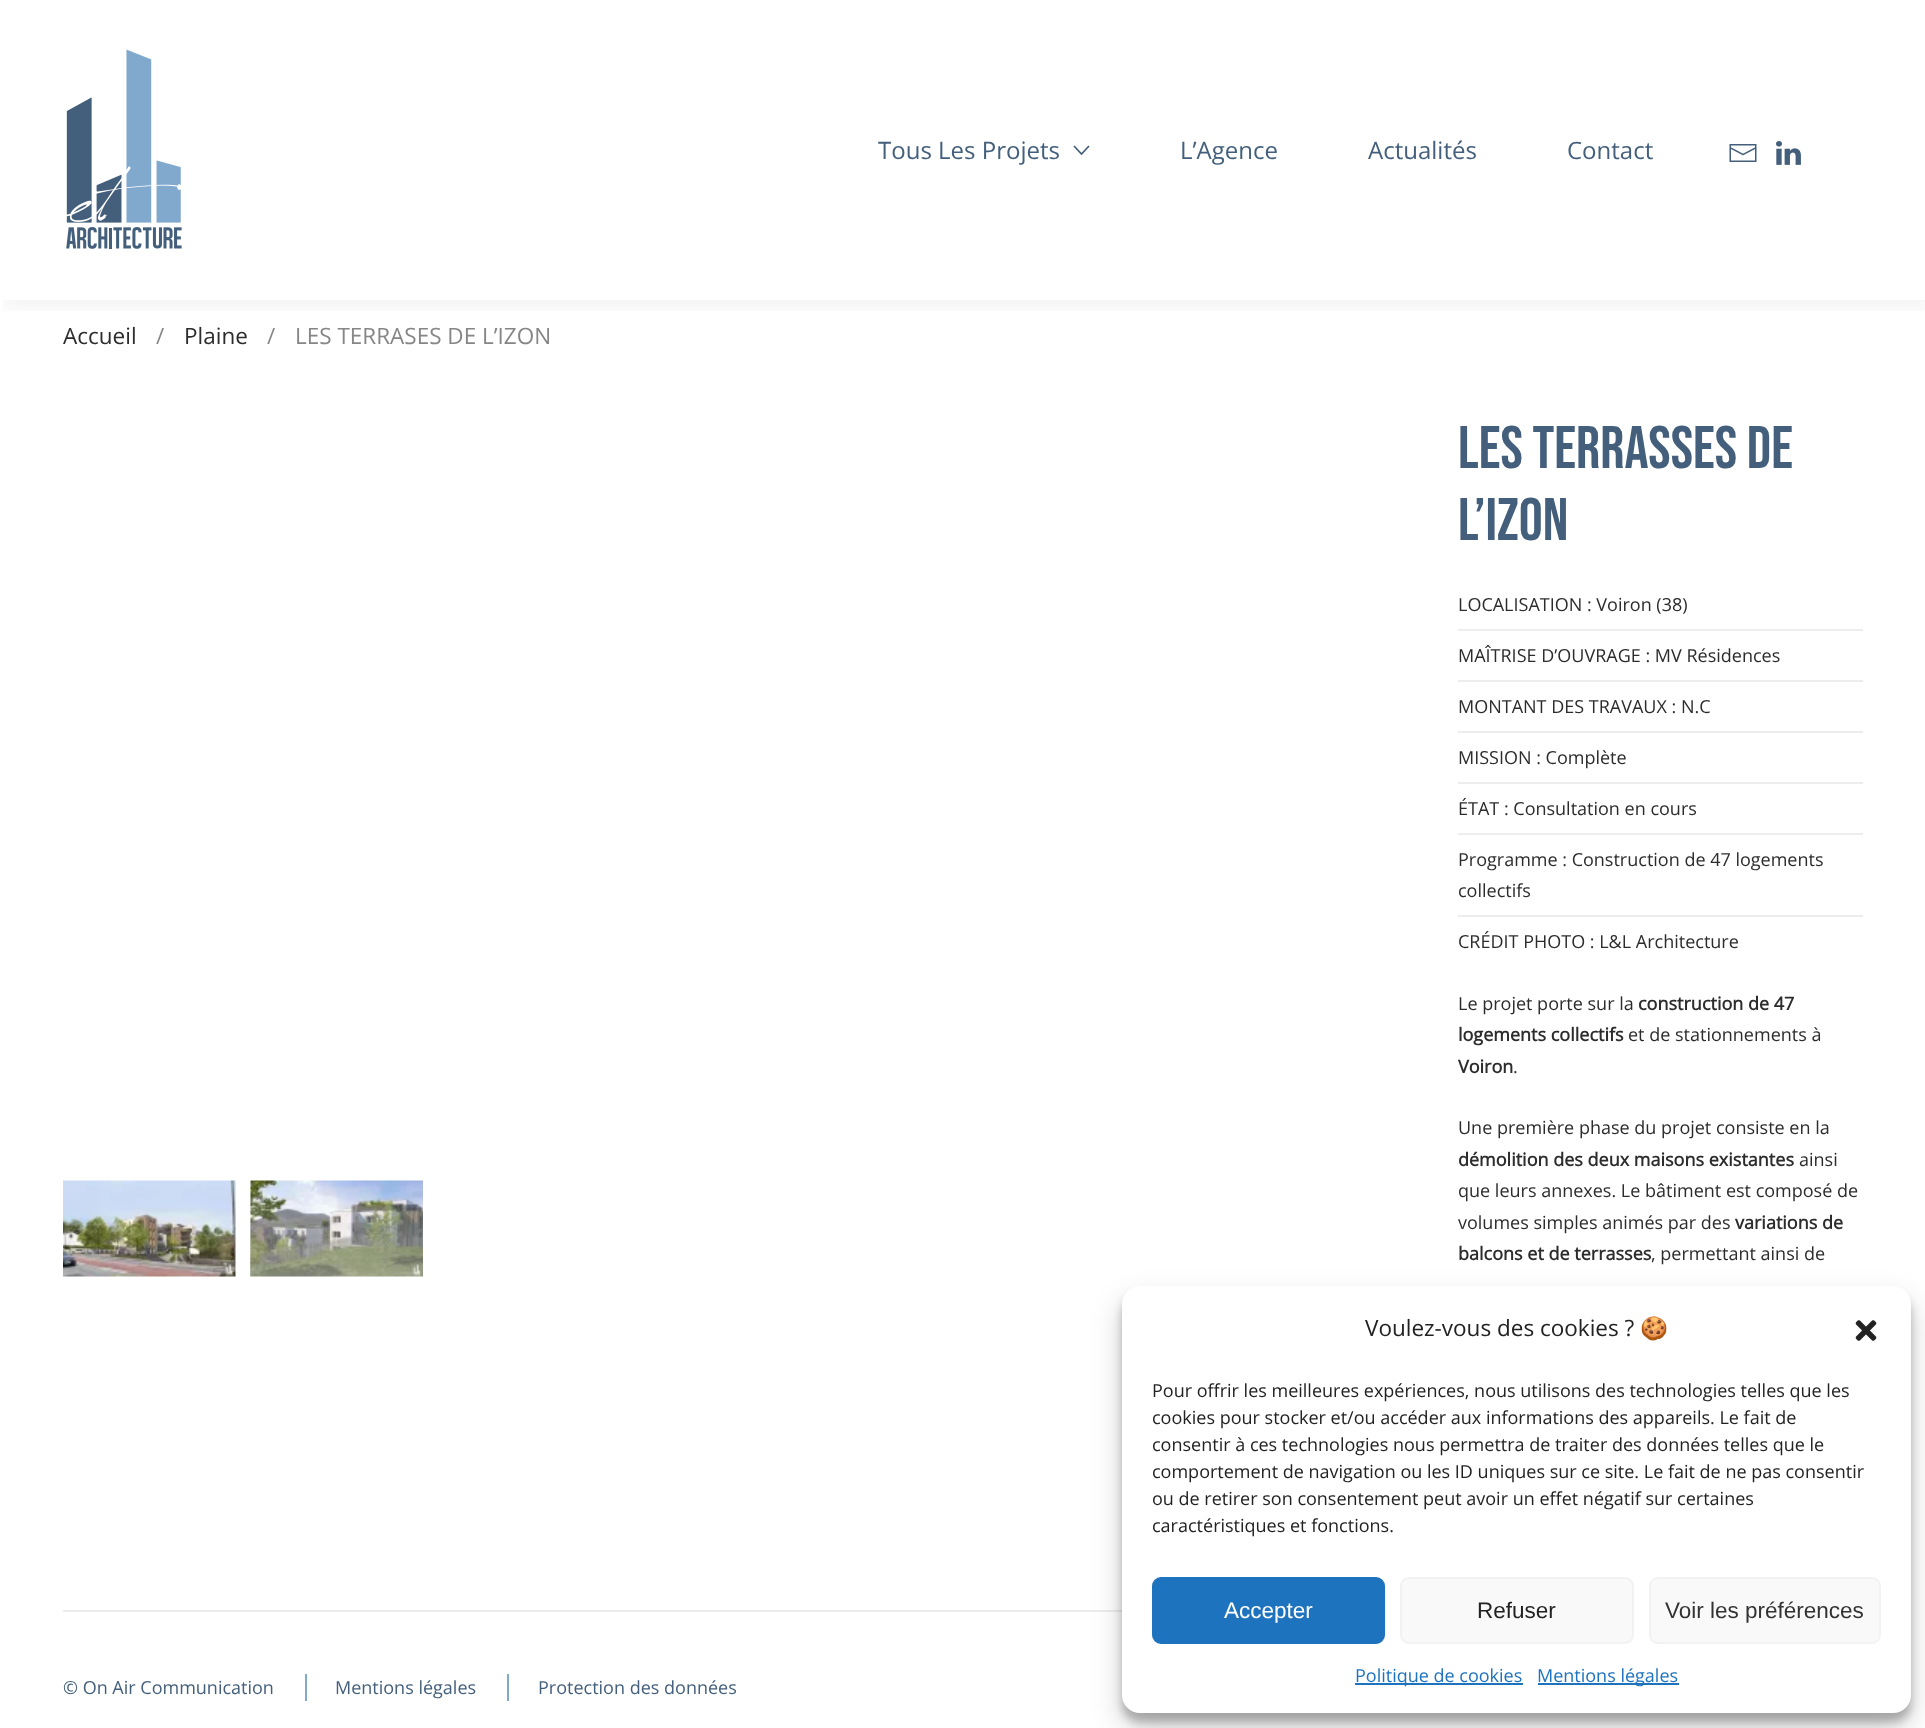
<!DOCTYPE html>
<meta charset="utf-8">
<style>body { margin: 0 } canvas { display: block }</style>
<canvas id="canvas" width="1925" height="1728"></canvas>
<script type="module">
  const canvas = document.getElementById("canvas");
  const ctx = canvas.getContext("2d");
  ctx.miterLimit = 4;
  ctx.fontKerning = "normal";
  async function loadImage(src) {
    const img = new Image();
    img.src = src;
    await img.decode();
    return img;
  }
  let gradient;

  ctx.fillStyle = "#ffffff";
  ctx.fillRect(0, 0, 1925, 1728);
  ctx.save();
  ctx.beginPath();
  ctx.rect(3, 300, 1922, 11);
  ctx.clip();
  ctx.fillStyle = "rgba(0, 0, 0, 0.06)";
  ctx.filter = "blur(12px)";
  ctx.beginPath();
  ctx.rect(3, 6, 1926, 300);
  ctx.fill();
  ctx.filter = "none";
  ctx.restore();
  ctx.drawImage(await loadImage("img1.png"), 66, 49, 116, 200);
  ctx.font = "24px Open Sans";
  ctx.fillStyle = "#435f7b";
  ctx.fillText("Tous Les Projets", 878, 159);
  ctx.beginPath();
  ctx.moveTo(1074, 146);
  ctx.lineTo(1081.5, 154);
  ctx.lineTo(1089, 146);
  ctx.strokeStyle = "#435f7b";
  ctx.lineWidth = 1.7;
  ctx.stroke();
  ctx.fillText("L’Agence", 1180, 159);
  ctx.fillText("Actualités", 1368, 159);
  ctx.fillText("Contact", 1567, 159);
  ctx.drawImage(await loadImage("img2.png"), 1729, 144, 28, 18);
  ctx.drawImage(await loadImage("img3.png"), 1776, 141, 25, 24);
  ctx.font = "22.5px Open Sans";
  ctx.fillStyle = "#2c2c2c";
  ctx.fillText("Accueil", 63, 344);
  ctx.fillStyle = "#868686";
  ctx.fillText("/", 156, 344);
  ctx.fillStyle = "#2c2c2c";
  ctx.fillText("Plaine", 184, 344);
  ctx.fillStyle = "#868686";
  ctx.fillText("/", 267, 344);
  ctx.fillText("LES TERRASES DE L’IZON", 295, 344);
  ctx.drawImage(await loadImage("img4.png"), 63, 1180, 173, 97);
  ctx.drawImage(await loadImage("img5.png"), 250, 1180, 173, 97);
  gradient = ctx.createLinearGradient(337, 1181, 337, 1277);
  gradient.addColorStop(0, "rgba(255, 255, 255, 0)");
  gradient.addColorStop(1, "rgba(255, 255, 255, 0.4)");
  ctx.fillStyle = gradient;
  ctx.fillRect(251, 1186, 172, 91);
  ctx.font = "60px Bebas Neue";
  ctx.fillStyle = "#435f7b";
  ctx.fillText("LES TERRASSES DE", 1458, 468);
  ctx.fillText("L’IZON", 1458, 540);
  ctx.font = "18px Open Sans";
  ctx.fillStyle = "#2c2c2c";
  ctx.fillText("LOCALISATION : Voiron (38)", 1458, 611);
  ctx.fillStyle = "#ededed";
  ctx.fillRect(1458, 629, 405, 2);
  ctx.fillStyle = "#2c2c2c";
  ctx.fillText("MAÎTRISE D’OUVRAGE : MV Résidences", 1458, 662);
  ctx.fillStyle = "#ededed";
  ctx.fillRect(1458, 680, 405, 2);
  ctx.fillStyle = "#2c2c2c";
  ctx.fillText("MONTANT DES TRAVAUX : N.C", 1458, 713);
  ctx.fillStyle = "#ededed";
  ctx.fillRect(1458, 731, 405, 2);
  ctx.fillStyle = "#2c2c2c";
  ctx.fillText("MISSION : Complète", 1458, 764);
  ctx.fillStyle = "#ededed";
  ctx.fillRect(1458, 782, 405, 2);
  ctx.fillStyle = "#2c2c2c";
  ctx.fillText("ÉTAT : Consultation en cours", 1458, 815);
  ctx.fillStyle = "#ededed";
  ctx.fillRect(1458, 833, 405, 2);
  ctx.fillStyle = "#2c2c2c";
  ctx.fillText("Programme : Construction de 47 logements", 1458, 866);
  ctx.fillText("collectifs", 1458, 897);
  ctx.fillStyle = "#ededed";
  ctx.fillRect(1458, 915, 405, 2);
  ctx.fillStyle = "#2c2c2c";
  ctx.fillText("CRÉDIT PHOTO : L&L Architecture", 1458, 948);
  ctx.fillText("Le projet porte sur la", 1458, 1010);
  ctx.font = "bold 18px Open Sans";
  ctx.fillText("construction de 47", 1638, 1010);
  ctx.fillText("logements collectifs", 1458, 1041);
  ctx.font = "18px Open Sans";
  ctx.fillText("et de stationnements à", 1628, 1041);
  ctx.font = "bold 18px Open Sans";
  ctx.fillText("Voiron", 1458, 1073);
  ctx.font = "18px Open Sans";
  ctx.fillText(".", 1513, 1073);
  ctx.fillText("Une première phase du projet consiste en la", 1458, 1134);
  ctx.font = "bold 18px Open Sans";
  ctx.fillText("démolition des deux maisons existantes", 1458, 1166);
  ctx.font = "18px Open Sans";
  ctx.fillText("ainsi", 1799, 1166);
  ctx.fillText("que leurs annexes. Le bâtiment est composé de", 1458, 1197);
  ctx.fillText("volumes simples animés par des", 1458, 1229);
  ctx.font = "bold 18px Open Sans";
  ctx.fillText("variations de", 1735, 1229);
  ctx.fillText("balcons et de terrasses", 1458, 1260);
  ctx.font = "18px Open Sans";
  ctx.fillText(", permettant ainsi de", 1651, 1260);
  ctx.fillStyle = "#ededed";
  ctx.fillRect(63, 1610, 1059, 2);
  ctx.fillStyle = "#435f7b";
  ctx.fillText("© On Air Communication", 63, 1694);
  ctx.fillStyle = "#81a9ce";
  ctx.fillRect(305, 1674, 2, 27);
  ctx.fillStyle = "#435f7b";
  ctx.fillText("Mentions légales", 335, 1694);
  ctx.fillStyle = "#81a9ce";
  ctx.fillRect(507, 1674, 2, 27);
  ctx.fillStyle = "#435f7b";
  ctx.fillText("Protection des données", 538, 1694);
  ctx.fillStyle = "rgba(0, 0, 0, 0.23)";
  ctx.filter = "blur(4.5px)";
  ctx.beginPath();
  ctx.roundRect(1122, 1295, 789, 427, 18);
  ctx.fill();
  ctx.filter = "none";
  ctx.fillStyle = "rgba(0, 0, 0, 0.19)";
  ctx.filter = "blur(15px)";
  ctx.beginPath();
  ctx.roundRect(1122, 1301, 789, 427, 18);
  ctx.fill();
  ctx.filter = "none";
  ctx.fillStyle = "#ffffff";
  ctx.beginPath();
  ctx.roundRect(1122, 1286, 789, 427, 18);
  ctx.fill();
  ctx.font = "22.5px Open Sans";
  ctx.fillStyle = "#222222";
  ctx.fillText("Voulez-vous des cookies ?", 1365, 1336);
  ctx.font = "22.5px Noto Color Emoji";
  ctx.fillText("🍪", 1640, 1336);
  ctx.drawImage(await loadImage("img6.png"), 1855, 1320, 22, 21);
  ctx.font = "18px Open Sans";
  ctx.fillText("Pour offrir les meilleures expériences, nous utilisons des technologies telles que les", 1152, 1397);
  ctx.fillText("cookies pour stocker et/ou accéder aux informations des appareils. Le fait de", 1152, 1424);
  ctx.fillText("consentir à ces technologies nous permettra de traiter des données telles que le", 1152, 1451);
  ctx.fillText("comportement de navigation ou les ID uniques sur ce site. Le fait de ne pas consentir", 1152, 1478);
  ctx.fillText("ou de retirer son consentement peut avoir un effet négatif sur certaines", 1152, 1505);
  ctx.fillText("caractéristiques et fonctions.", 1152, 1532);
  ctx.fillStyle = "#1e73be";
  ctx.beginPath();
  ctx.roundRect(1153, 1578, 231, 65, 8);
  ctx.fill();
  ctx.strokeStyle = "#1e73be";
  ctx.lineWidth = 2;
  ctx.stroke();
  ctx.font = "22.5px Liberation Sans";
  ctx.fillStyle = "#ffffff";
  ctx.fillText("Accepter", 1224, 1618);
  ctx.fillStyle = "#f9f9f9";
  ctx.beginPath();
  ctx.roundRect(1401, 1578, 232, 65, 8);
  ctx.fill();
  ctx.strokeStyle = "#f2f2f2";
  ctx.stroke();
  ctx.fillStyle = "#222222";
  ctx.fillText("Refuser", 1477, 1618);
  ctx.fillStyle = "#f9f9f9";
  ctx.beginPath();
  ctx.roundRect(1650, 1578, 230, 65, 8);
  ctx.fill();
  ctx.stroke();
  ctx.fillStyle = "#333333";
  ctx.fillText("Voir les préférences", 1665, 1618);
  ctx.fillStyle = "#1e73be";
  ctx.fillRect(1355, 1683, 168, 2);
  ctx.font = "18px Open Sans";
  ctx.fillText("Politique de cookies", 1355, 1682);
  ctx.fillRect(1538, 1683, 141, 2);
  ctx.fillText("Mentions légales", 1537, 1682);
</script>
